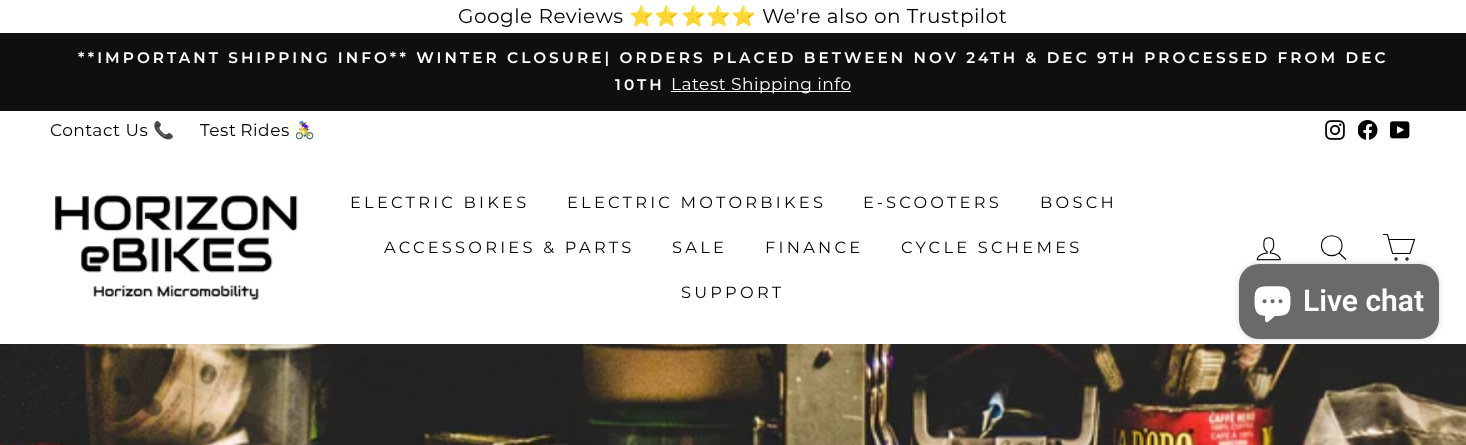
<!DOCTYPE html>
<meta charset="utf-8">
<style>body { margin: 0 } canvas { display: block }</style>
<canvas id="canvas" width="1466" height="445"></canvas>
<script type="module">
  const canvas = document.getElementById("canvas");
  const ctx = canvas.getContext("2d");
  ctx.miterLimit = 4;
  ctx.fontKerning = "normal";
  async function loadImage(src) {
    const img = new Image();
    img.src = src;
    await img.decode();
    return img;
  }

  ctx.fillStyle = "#ffffff";
  ctx.fillRect(0, 0, 1466, 445);
  ctx.letterSpacing = "0.5px";
  ctx.font = "20px Montserrat";
  ctx.fillStyle = "#000000";
  ctx.fillText("Google Reviews", 458, 23);
  ctx.font = "20px Noto Color Emoji";
  ctx.fillText("⭐️⭐️", 629, 23);
  ctx.fillText("⭐️", 681, 23);
  ctx.fillText("⭐️", 706, 23);
  ctx.fillText("⭐️", 731, 23);
  ctx.font = "20px Montserrat";
  ctx.fillText("We're also on Trustpilot", 762, 23);
  ctx.fillStyle = "#0f0f0f";
  ctx.fillRect(0, 33, 1466, 78);
  ctx.letterSpacing = "3.06px";
  ctx.font = "600 15.3px Montserrat";
  ctx.fillStyle = "#ffffff";
  ctx.fillText("**IMPORTANT SHIPPING INFO** WINTER CLOSURE| ORDERS PLACED BETWEEN NOV 24TH & DEC 9TH PROCESSED FROM DEC", 78, 63);
  ctx.fillText("10TH", 615, 90);
  ctx.fillRect(671, 91, 180, 1);
  ctx.letterSpacing = "0.5px";
  ctx.font = "17px Montserrat";
  ctx.fillText("Latest Shipping info", 671, 90);
  ctx.fillStyle = "#000000";
  ctx.fillText("Contact Us", 50, 136);
  ctx.font = "17px Noto Color Emoji";
  ctx.fillText("📞", 153, 136);
  ctx.wordSpacing = "-1px";
  ctx.font = "17px Montserrat";
  ctx.fillText("Test Rides", 200, 136);
  ctx.wordSpacing = "0px";
  ctx.font = "17px Noto Color Emoji";
  ctx.fillText("🚴‍♀️", 294, 136);
  ctx.drawImage(await loadImage("img1.png"), 1325, 120, 20, 20);
  ctx.drawImage(await loadImage("img2.png"), 1358, 120, 20, 20);
  ctx.drawImage(await loadImage("img3.png"), 1390, 121, 20, 18);
  ctx.drawImage(await loadImage("img6.png"), 0, 344, 1466, 101);
  ctx.fillStyle = "rgba(0, 0, 0, 0.2)";
  ctx.filter = "blur(0.5px)";
  ctx.beginPath();
  ctx.rect(0, 151, 1466, 193);
  ctx.fill();
  ctx.filter = "none";
  ctx.fillStyle = "#ffffff";
  ctx.fillRect(0, 151, 1466, 193);
  ctx.drawImage(await loadImage("img4.png"), 54, 194, 246, 107);
  ctx.letterSpacing = "3.25px";
  ctx.font = "16.25px Montserrat";
  ctx.fillStyle = "#000000";
  ctx.fillText("ELECTRIC BIKES", 350, 208);
  ctx.fillText("ELECTRIC MOTORBIKES", 567, 208);
  ctx.fillText("E-SCOOTERS", 863, 208);
  ctx.fillText("BOSCH", 1040, 208);
  ctx.fillText("ACCESSORIES & PARTS", 384, 253);
  ctx.fillText("SALE", 672, 253);
  ctx.fillText("FINANCE", 765, 253);
  ctx.fillText("CYCLE SCHEMES", 901, 253);
  ctx.fillText("SUPPORT", 681, 298);
  ctx.drawImage(await loadImage("img5.png"), 1256, 237, 25, 24);
  ctx.beginPath();
  ctx.moveTo(1342, 245.5);
  ctx.bezierCurveTo(1342, 259, 1321.5, 259, 1321.5, 245.5);
  ctx.bezierCurveTo(1321.5, 232.5, 1342, 232.5, 1342, 245.5);
  ctx.closePath();
  ctx.moveTo(1346, 259.5);
  ctx.lineTo(1339, 253);
  ctx.strokeStyle = "#000000";
  ctx.lineWidth = 1.1;
  ctx.stroke();
  ctx.beginPath();
  ctx.moveTo(1389, 239.5);
  ctx.lineTo(1414.5, 239.5);
  ctx.lineTo(1410, 253.5);
  ctx.lineTo(1392.5, 253.5);
  ctx.lineTo(1387.5, 234.5);
  ctx.lineTo(1383, 234.5);
  ctx.stroke();
  ctx.beginPath();
  ctx.arc(1396, 259, 1.1, 0, Math.PI * 2);
  ctx.stroke();
  ctx.beginPath();
  ctx.arc(1407, 259, 1.1, 0, Math.PI * 2);
  ctx.stroke();
  ctx.fillStyle = "rgba(0, 0, 0, 0.15)";
  ctx.filter = "blur(3px)";
  ctx.beginPath();
  ctx.roundRect(1239, 264, 200, 75, 20);
  ctx.fill();
  ctx.filter = "none";
  ctx.fillStyle = "#6a6a6a";
  ctx.beginPath();
  ctx.roundRect(1239, 264, 200, 75, 20);
  ctx.fill();
  ctx.drawImage(await loadImage("img7.png"), 1254, 286, 37, 37);
  ctx.letterSpacing = "0px";
  ctx.font = "600 30px Roboto";
  ctx.fillStyle = "#ffffff";
  ctx.fillText("Live chat", 1303, 311);
</script>
